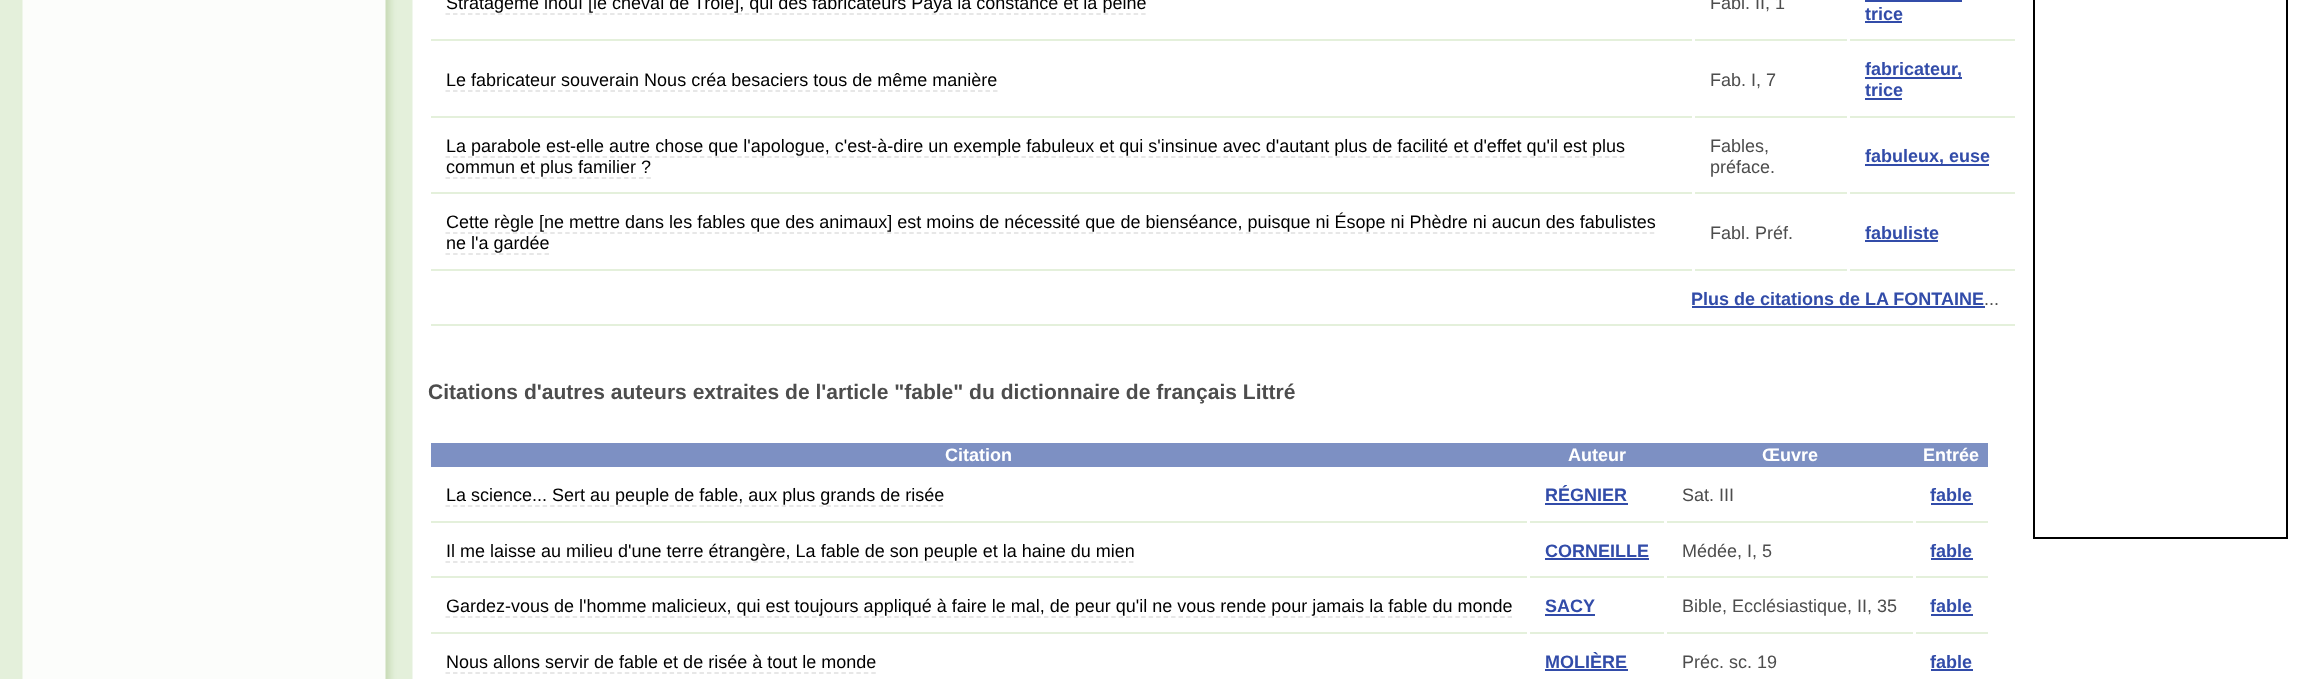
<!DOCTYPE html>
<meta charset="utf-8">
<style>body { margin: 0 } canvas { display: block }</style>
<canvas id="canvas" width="2302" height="679"></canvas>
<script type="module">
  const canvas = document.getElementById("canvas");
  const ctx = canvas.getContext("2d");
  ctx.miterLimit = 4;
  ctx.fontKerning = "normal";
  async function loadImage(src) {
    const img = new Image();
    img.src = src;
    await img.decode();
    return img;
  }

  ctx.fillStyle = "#ffffff";
  ctx.fillRect(0, 0, 2302, 679);
  ctx.drawImage(await loadImage("img1.png"), 0, 0, 413, 679);
  ctx.fillStyle = "#e4f0db";
  ctx.fillRect(431, 39, 1261, 2);
  ctx.font = "18px Liberation Sans";
  ctx.fillStyle = "#000000";
  ctx.fillText("Stratagème inouï [le cheval de Troie], qui des fabricateurs Paya la constance et la peine", 446, 9);
  ctx.beginPath();
  ctx.moveTo(445.5, 14);
  ctx.lineTo(1146, 14);
  ctx.strokeStyle = "#e0e0e0";
  ctx.lineWidth = 1.5;
  ctx.setLineDash([4.5, 2.98]);
  ctx.stroke();
  ctx.fillStyle = "#e4f0db";
  ctx.fillRect(1695, 39, 152, 2);
  ctx.fillStyle = "#4d4d4d";
  ctx.fillText("Fabl. II, 1", 1710, 9);
  ctx.fillStyle = "#e4f0db";
  ctx.fillRect(1850, 39, 165, 2);
  ctx.font = "bold 18px Liberation Sans";
  ctx.fillStyle = "#324ca9";
  ctx.fillText("trice", 1865, 20);
  ctx.fillRect(1865, 0, 97, 2);
  ctx.fillRect(1865, 21, 37, 2);
  ctx.fillStyle = "#e4f0db";
  ctx.fillRect(431, 116, 1261, 2);
  ctx.font = "18px Liberation Sans";
  ctx.fillStyle = "#000000";
  ctx.fillText("Le fabricateur souverain Nous créa besaciers tous de même manière", 446, 86);
  ctx.beginPath();
  ctx.moveTo(445.5, 91);
  ctx.lineTo(997.5, 91);
  ctx.setLineDash([4.5, 3]);
  ctx.stroke();
  ctx.fillStyle = "#e4f0db";
  ctx.fillRect(1695, 116, 152, 2);
  ctx.fillStyle = "#4d4d4d";
  ctx.fillText("Fab. I, 7", 1710, 86);
  ctx.fillStyle = "#e4f0db";
  ctx.fillRect(1850, 116, 165, 2);
  ctx.fillStyle = "#324ca9";
  ctx.fillRect(1865, 77, 97, 2);
  ctx.font = "bold 18px Liberation Sans";
  ctx.fillText("fabricateur,", 1865, 75);
  ctx.fillText("trice", 1865, 96);
  ctx.fillRect(1865, 98, 37, 2);
  ctx.fillStyle = "#e4f0db";
  ctx.fillRect(431, 192, 1261, 2);
  ctx.font = "18px Liberation Sans";
  ctx.fillStyle = "#000000";
  ctx.fillText("La parabole est-elle autre chose que l'apologue, c'est-à-dire un exemple fabuleux et qui s'insinue avec d'autant plus de facilité et d'effet qu'il est plus", 446, 152);
  ctx.beginPath();
  ctx.moveTo(445.5, 157);
  ctx.lineTo(1624.5, 157);
  ctx.setLineDash([4.5, 2.98]);
  ctx.stroke();
  ctx.fillText("commun et plus familier ?", 446, 173);
  ctx.beginPath();
  ctx.moveTo(445.5, 178);
  ctx.lineTo(651, 178);
  ctx.setLineDash([4.5, 2.94]);
  ctx.stroke();
  ctx.fillStyle = "#e4f0db";
  ctx.fillRect(1695, 192, 152, 2);
  ctx.fillStyle = "#4d4d4d";
  ctx.fillText("Fables,", 1710, 152);
  ctx.fillText("préface.", 1710, 173);
  ctx.fillStyle = "#e4f0db";
  ctx.fillRect(1850, 192, 165, 2);
  ctx.fillStyle = "#324ca9";
  ctx.fillRect(1865, 164, 124, 2);
  ctx.font = "bold 18px Liberation Sans";
  ctx.fillText("fabuleux, euse", 1865, 162);
  ctx.fillStyle = "#e4f0db";
  ctx.fillRect(431, 269, 1261, 2);
  ctx.font = "18px Liberation Sans";
  ctx.fillStyle = "#000000";
  ctx.fillText("Cette règle [ne mettre dans les fables que des animaux] est moins de nécessité que de bienséance, puisque ni Ésope ni Phèdre ni aucun des fabulistes", 446, 228);
  ctx.beginPath();
  ctx.moveTo(445.5, 233);
  ctx.lineTo(1656, 233);
  ctx.setLineDash([4.5, 2.98]);
  ctx.stroke();
  ctx.fillText("ne l'a gardée", 446, 249);
  ctx.beginPath();
  ctx.moveTo(445.5, 254);
  ctx.lineTo(549, 254);
  ctx.setLineDash([4.5, 3.12]);
  ctx.stroke();
  ctx.fillStyle = "#e4f0db";
  ctx.fillRect(1695, 269, 152, 2);
  ctx.fillStyle = "#4d4d4d";
  ctx.fillText("Fabl. Préf.", 1710, 239);
  ctx.fillStyle = "#e4f0db";
  ctx.fillRect(1850, 269, 165, 2);
  ctx.font = "bold 18px Liberation Sans";
  ctx.fillStyle = "#324ca9";
  ctx.fillText("fabuliste", 1865, 239);
  ctx.fillRect(1865, 240, 73, 2);
  ctx.fillStyle = "#e4f0db";
  ctx.fillRect(431, 324, 1584, 2);
  ctx.fillStyle = "#324ca9";
  ctx.fillText("Plus de citations de LA FONTAINE", 1691, 305);
  ctx.fillRect(1692, 306, 293, 2);
  ctx.font = "18px Liberation Sans";
  ctx.fillStyle = "#4d4d4d";
  ctx.fillText("...", 1984, 305);
  ctx.font = "bold 21.05px Liberation Sans";
  ctx.fillText("Citations d'autres auteurs extraites de l'article \"fable\" du dictionnaire de français Littré", 428, 399);
  ctx.fillStyle = "#7d90c3";
  ctx.fillRect(431, 443, 1557, 24);
  ctx.font = "bold 18px Liberation Sans";
  ctx.fillStyle = "#ffffff";
  ctx.fillText("Citation", 945, 461);
  ctx.fillText("Auteur", 1568, 461);
  ctx.fillText("Œuvre", 1762, 461);
  ctx.fillText("Entrée", 1923, 461);
  ctx.fillStyle = "#e4f0db";
  ctx.fillRect(431, 521, 1096, 2);
  ctx.font = "18px Liberation Sans";
  ctx.fillStyle = "#000000";
  ctx.fillText("La science... Sert au peuple de fable, aux plus grands de risée", 446, 501);
  ctx.beginPath();
  ctx.moveTo(445.5, 506);
  ctx.lineTo(943.5, 506);
  ctx.setLineDash([4.5, 2.97]);
  ctx.stroke();
  ctx.fillStyle = "#e4f0db";
  ctx.fillRect(1530, 521, 134, 2);
  ctx.font = "bold 18px Liberation Sans";
  ctx.fillStyle = "#324ca9";
  ctx.fillText("RÉGNIER", 1545, 501);
  ctx.fillRect(1545, 503, 83, 2);
  ctx.fillStyle = "#e4f0db";
  ctx.fillRect(1667, 521, 246, 2);
  ctx.font = "18px Liberation Sans";
  ctx.fillStyle = "#4d4d4d";
  ctx.fillText("Sat. III", 1682, 501);
  ctx.fillStyle = "#e4f0db";
  ctx.fillRect(1916, 521, 72, 2);
  ctx.font = "bold 18px Liberation Sans";
  ctx.fillStyle = "#324ca9";
  ctx.fillText("fable", 1930, 501);
  ctx.fillRect(1931, 503, 42, 2);
  ctx.fillStyle = "#e4f0db";
  ctx.fillRect(431, 576, 1096, 2);
  ctx.font = "18px Liberation Sans";
  ctx.fillStyle = "#000000";
  ctx.fillText("Il me laisse au milieu d'une terre étrangère, La fable de son peuple et la haine du mien", 446, 557);
  ctx.beginPath();
  ctx.moveTo(445.5, 562);
  ctx.lineTo(1134, 562);
  ctx.setLineDash([4.5, 3.01]);
  ctx.stroke();
  ctx.fillStyle = "#e4f0db";
  ctx.fillRect(1530, 576, 134, 2);
  ctx.font = "bold 18px Liberation Sans";
  ctx.fillStyle = "#324ca9";
  ctx.fillText("CORNEILLE", 1545, 557);
  ctx.fillRect(1545, 558, 104, 2);
  ctx.fillStyle = "#e4f0db";
  ctx.fillRect(1667, 576, 246, 2);
  ctx.font = "18px Liberation Sans";
  ctx.fillStyle = "#4d4d4d";
  ctx.fillText("Médée, I, 5", 1682, 557);
  ctx.fillStyle = "#e4f0db";
  ctx.fillRect(1916, 576, 72, 2);
  ctx.font = "bold 18px Liberation Sans";
  ctx.fillStyle = "#324ca9";
  ctx.fillText("fable", 1930, 557);
  ctx.fillRect(1931, 558, 42, 2);
  ctx.fillStyle = "#e4f0db";
  ctx.fillRect(431, 632, 1096, 2);
  ctx.font = "18px Liberation Sans";
  ctx.fillStyle = "#000000";
  ctx.fillText("Gardez-vous de l'homme malicieux, qui est toujours appliqué à faire le mal, de peur qu'il ne vous rende pour jamais la fable du monde", 446, 612);
  ctx.beginPath();
  ctx.moveTo(445.5, 617);
  ctx.lineTo(1512, 617);
  ctx.setLineDash([4.5, 2.98]);
  ctx.stroke();
  ctx.fillStyle = "#e4f0db";
  ctx.fillRect(1530, 632, 134, 2);
  ctx.font = "bold 18px Liberation Sans";
  ctx.fillStyle = "#324ca9";
  ctx.fillText("SACY", 1545, 612);
  ctx.fillRect(1545, 614, 50, 2);
  ctx.fillStyle = "#e4f0db";
  ctx.fillRect(1667, 632, 246, 2);
  ctx.font = "18px Liberation Sans";
  ctx.fillStyle = "#4d4d4d";
  ctx.fillText("Bible, Ecclésiastique, II, 35", 1682, 612);
  ctx.fillStyle = "#e4f0db";
  ctx.fillRect(1916, 632, 72, 2);
  ctx.font = "bold 18px Liberation Sans";
  ctx.fillStyle = "#324ca9";
  ctx.fillText("fable", 1930, 612);
  ctx.fillRect(1931, 614, 42, 2);
  ctx.font = "18px Liberation Sans";
  ctx.fillStyle = "#000000";
  ctx.fillText("Nous allons servir de fable et de risée à tout le monde", 446, 668);
  ctx.beginPath();
  ctx.moveTo(445.5, 673);
  ctx.lineTo(876, 673);
  ctx.setLineDash([4.5, 2.97]);
  ctx.stroke();
  ctx.font = "bold 18px Liberation Sans";
  ctx.fillStyle = "#324ca9";
  ctx.fillText("MOLIÈRE", 1545, 668);
  ctx.fillRect(1545, 669, 83, 2);
  ctx.font = "18px Liberation Sans";
  ctx.fillStyle = "#4d4d4d";
  ctx.fillText("Préc. sc. 19", 1682, 668);
  ctx.font = "bold 18px Liberation Sans";
  ctx.fillStyle = "#324ca9";
  ctx.fillText("fable", 1930, 668);
  ctx.fillRect(1931, 669, 42, 2);
  ctx.strokeStyle = "#000000";
  ctx.lineWidth = 2;
  ctx.setLineDash([]);
  ctx.strokeRect(2034, -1, 253, 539);
</script>
